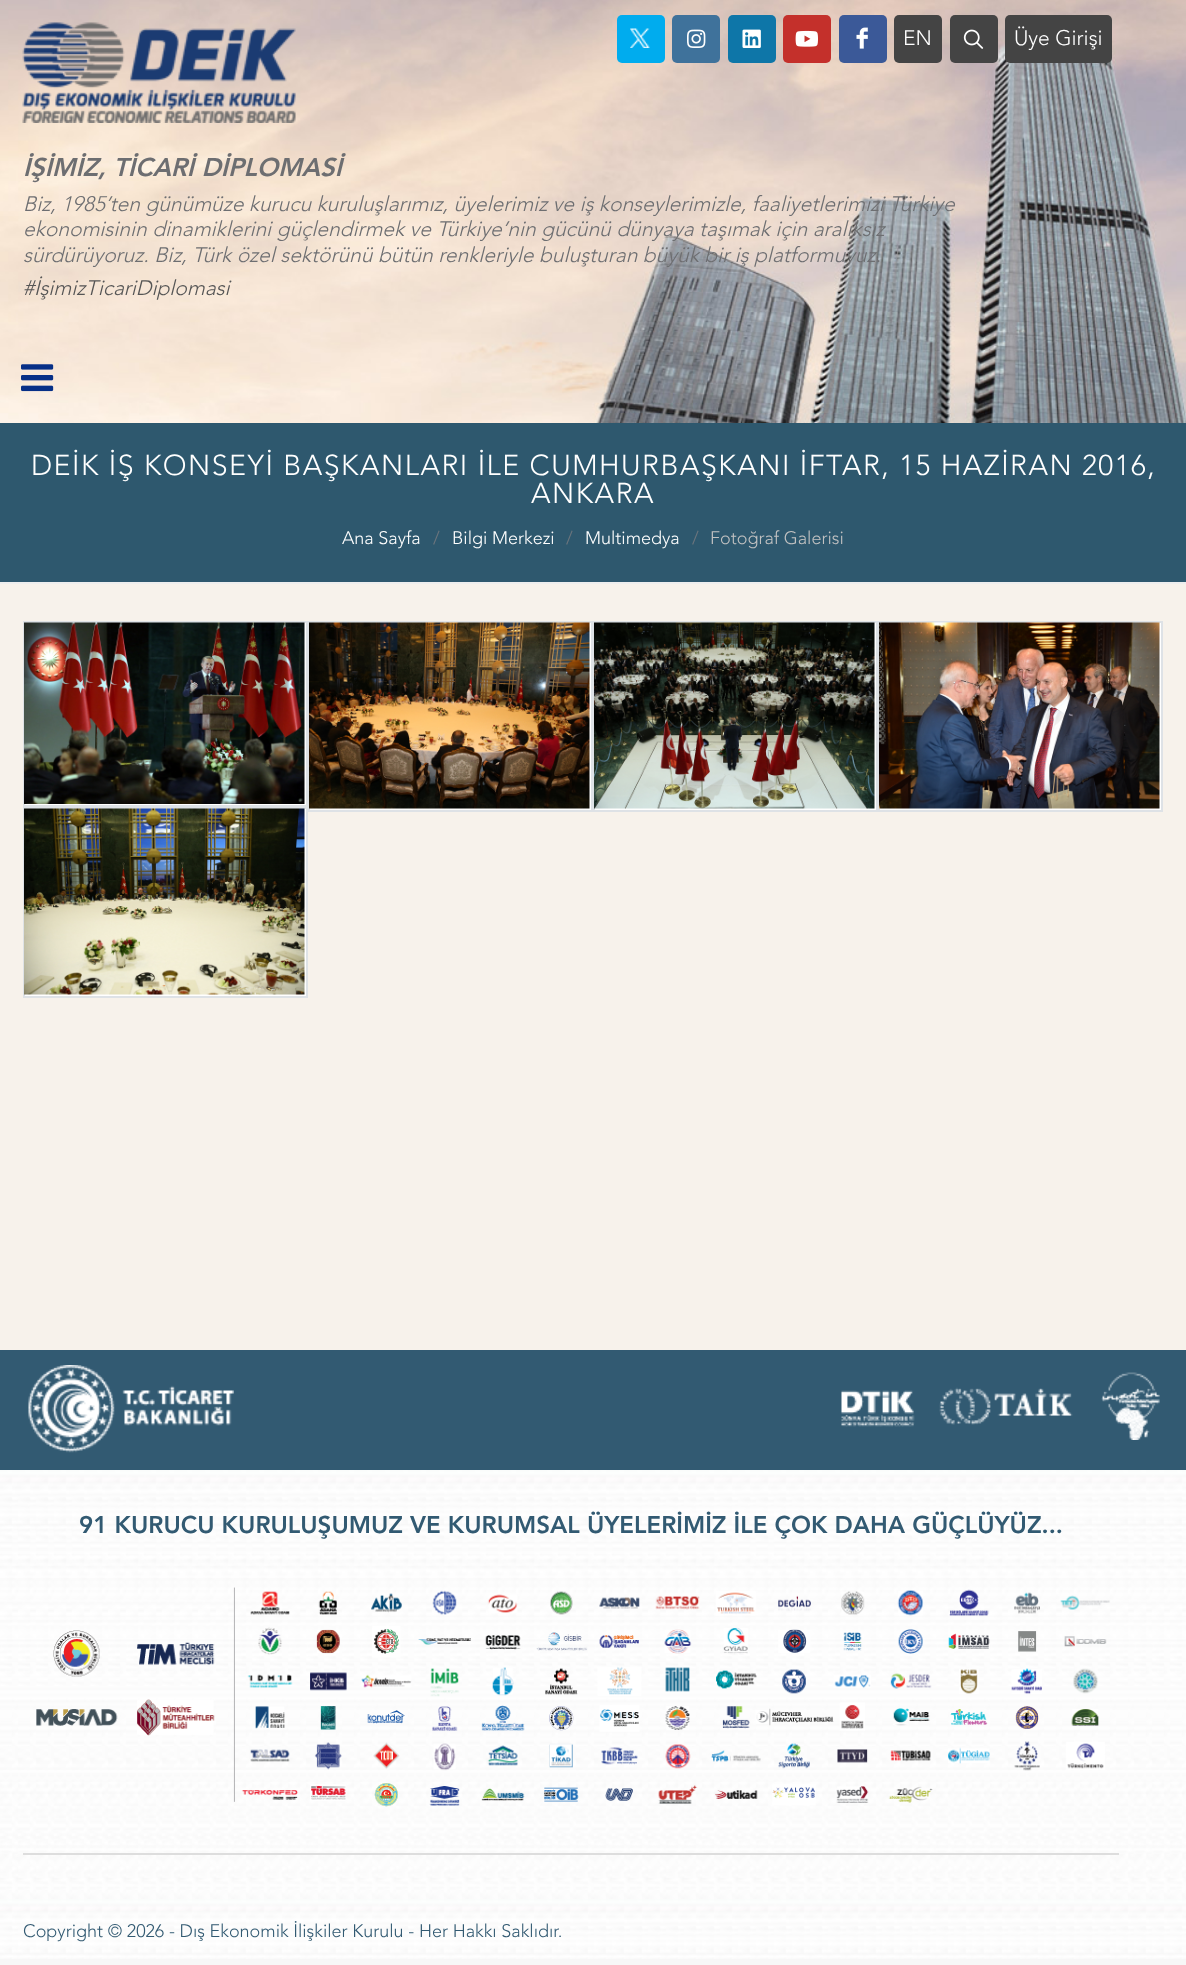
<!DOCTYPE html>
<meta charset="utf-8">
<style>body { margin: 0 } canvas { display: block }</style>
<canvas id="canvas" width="1186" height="1965"></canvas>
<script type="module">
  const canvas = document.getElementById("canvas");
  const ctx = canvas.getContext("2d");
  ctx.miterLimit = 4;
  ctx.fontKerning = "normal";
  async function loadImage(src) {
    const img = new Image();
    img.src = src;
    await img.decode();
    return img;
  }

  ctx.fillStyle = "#f7f7f7";
  ctx.fillRect(0, 0, 1186, 1965);
  ctx.fillStyle = "#f7f2eb";
  ctx.fillRect(0, 584, 1186, 766);
  ctx.drawImage(await loadImage("img1.png"), 0, 0, 1186, 423);
  ctx.fillStyle = "#00acee";
  ctx.beginPath();
  ctx.roundRect(617, 15, 48, 48, 5);
  ctx.fill();
  ctx.drawImage(await loadImage("img2.png"), 630, 28, 20, 20);
  ctx.fillStyle = "#3f729b";
  ctx.beginPath();
  ctx.roundRect(672, 15, 48, 48, 5);
  ctx.fill();
  ctx.drawImage(await loadImage("img3.png"), 687, 29, 19, 19);
  ctx.fillStyle = "#0e76a8";
  ctx.beginPath();
  ctx.roundRect(728, 15, 48, 48, 5);
  ctx.fill();
  ctx.drawImage(await loadImage("img4.png"), 742, 29, 19, 19);
  ctx.fillStyle = "#c4302b";
  ctx.beginPath();
  ctx.roundRect(783, 15, 48, 48, 5);
  ctx.fill();
  ctx.drawImage(await loadImage("img5.png"), 795, 30, 23, 17);
  ctx.fillStyle = "#3b5998";
  ctx.beginPath();
  ctx.roundRect(839, 15, 48, 48, 5);
  ctx.fill();
  ctx.drawImage(await loadImage("img6.png"), 856, 27, 12, 22);
  ctx.fillStyle = "#444444";
  ctx.beginPath();
  ctx.roundRect(894, 15, 48, 48, 5);
  ctx.fill();
  ctx.font = "300 21px Avenir";
  ctx.fillStyle = "#ffffff";
  ctx.fillText("EN", 903, 45);
  ctx.fillStyle = "#444444";
  ctx.beginPath();
  ctx.roundRect(950, 15, 48, 48, 5);
  ctx.fill();
  ctx.drawImage(await loadImage("img7.png"), 963, 29, 21, 20);
  ctx.beginPath();
  ctx.roundRect(1005, 15, 107, 48, 5);
  ctx.fill();
  ctx.fillStyle = "#ffffff";
  ctx.fillText("Üye Girişi", 1014, 45);
  ctx.drawImage(await loadImage("img8.png"), 22, 22, 274, 101);
  ctx.font = "italic 900 25.5px Avenir";
  ctx.fillStyle = "#6d6e71";
  ctx.fillText("İŞİMİZ, TİCARİ DİPLOMASİ", 23, 176);
  ctx.font = "italic 300 21px Avenir";
  ctx.fillText("Biz, 1985’ten günümüze kurucu kuruluşlarımız, üyelerimiz ve iş konseylerimizle, faaliyetlerimizi Türkiye", 23, 211);
  ctx.fillText("ekonomisinin dinamiklerini güçlendirmek ve Türkiye’nin gücünü dünyaya taşımak için aralıksız", 23, 236);
  ctx.fillText("sürdürüyoruz. Biz, Türk özel sektörünü bütün renkleriyle buluşturan büyük bir iş platformuyuz.", 23, 262);
  ctx.fillStyle = "#555555";
  ctx.fillText("#İşimizTicariDiplomasi", 23, 295);
  ctx.drawImage(await loadImage("img9.png"), 21, 364, 33, 28);
  ctx.fillStyle = "#2e586e";
  ctx.fillRect(0, 423, 1186, 159);
  ctx.fillStyle = "#eeeeee";
  ctx.fillRect(0, 582, 1186, 2);
  ctx.letterSpacing = "1.5px";
  ctx.font = "300 28.5px Avenir";
  ctx.fillStyle = "#ffffff";
  ctx.fillText("DEİK İŞ KONSEYİ BAŞKANLARI İLE CUMHURBAŞKANI İFTAR, 15 HAZİRAN 2016,", 31, 475);
  ctx.fillText("ANKARA", 531, 503);
  ctx.letterSpacing = "0px";
  ctx.font = "300 18px Avenir";
  ctx.fillText("Ana Sayfa", 342, 544);
  ctx.fillStyle = "#6c757d";
  ctx.fillText("/", 433, 544);
  ctx.fillStyle = "#ffffff";
  ctx.fillText("Bilgi Merkezi", 452, 544);
  ctx.fillStyle = "#6c757d";
  ctx.fillText("/", 566, 544);
  ctx.fillStyle = "#ffffff";
  ctx.fillText("Multimedya", 585, 544);
  ctx.fillStyle = "#6c757d";
  ctx.fillText("/", 692, 544);
  ctx.fillStyle = "#c2c2c2";
  ctx.fillText("Fotoğraf Galerisi", 710, 544);
  ctx.fillStyle = "#ffffff";
  ctx.beginPath();
  ctx.rect(24, 622, 283, 184);
  ctx.fill();
  ctx.strokeStyle = "#dee2e6";
  ctx.lineWidth = 2;
  ctx.stroke();
  ctx.drawImage(await loadImage("img10.png"), 24, 622, 281, 182);
  ctx.beginPath();
  ctx.rect(309, 622, 283, 189);
  ctx.fill();
  ctx.stroke();
  ctx.drawImage(await loadImage("img11.png"), 309, 622, 281, 187);
  ctx.beginPath();
  ctx.rect(594, 622, 283, 189);
  ctx.fill();
  ctx.stroke();
  ctx.drawImage(await loadImage("img12.png"), 594, 622, 281, 187);
  ctx.beginPath();
  ctx.rect(879, 622, 283, 189);
  ctx.fill();
  ctx.stroke();
  ctx.drawImage(await loadImage("img13.png"), 879, 622, 281, 187);
  ctx.beginPath();
  ctx.rect(24, 808, 283, 189);
  ctx.fill();
  ctx.stroke();
  ctx.drawImage(await loadImage("img14.png"), 24, 808, 281, 187);
  ctx.fillStyle = "#325a72";
  ctx.fillRect(0, 1350, 1186, 120);
  ctx.drawImage(await loadImage("img15.png"), 28, 1365, 206, 88);
  ctx.drawImage(await loadImage("img16.png"), 841, 1390, 74, 37);
  ctx.drawImage(await loadImage("img17.png"), 939, 1387, 134, 38);
  ctx.drawImage(await loadImage("img18.png"), 1101, 1372, 59, 68);
  ctx.drawImage(await loadImage("img19.png"), 0, 1470, 1186, 429);
  ctx.font = "900 24px Avenir";
  ctx.fillText("91 KURUCU KURULUŞUMUZ VE KURUMSAL ÜYELERİMİZ İLE ÇOK DAHA GÜÇLÜYÜZ...", 79, 1533);
  ctx.drawImage(await loadImage("img20.png"), 36, 1587, 1074, 220);
  ctx.fillStyle = "#dddddd";
  ctx.fillRect(23, 1853, 1096, 2);
  ctx.drawImage(await loadImage("img21.png"), 0, 1899, 1186, 60);
  ctx.font = "300 18px Avenir";
  ctx.fillStyle = "#325a72";
  ctx.fillText("Copyright © 2026 - Dış Ekonomik İlişkiler Kurulu - Her Hakkı Saklıdır.", 23, 1937);
</script>
